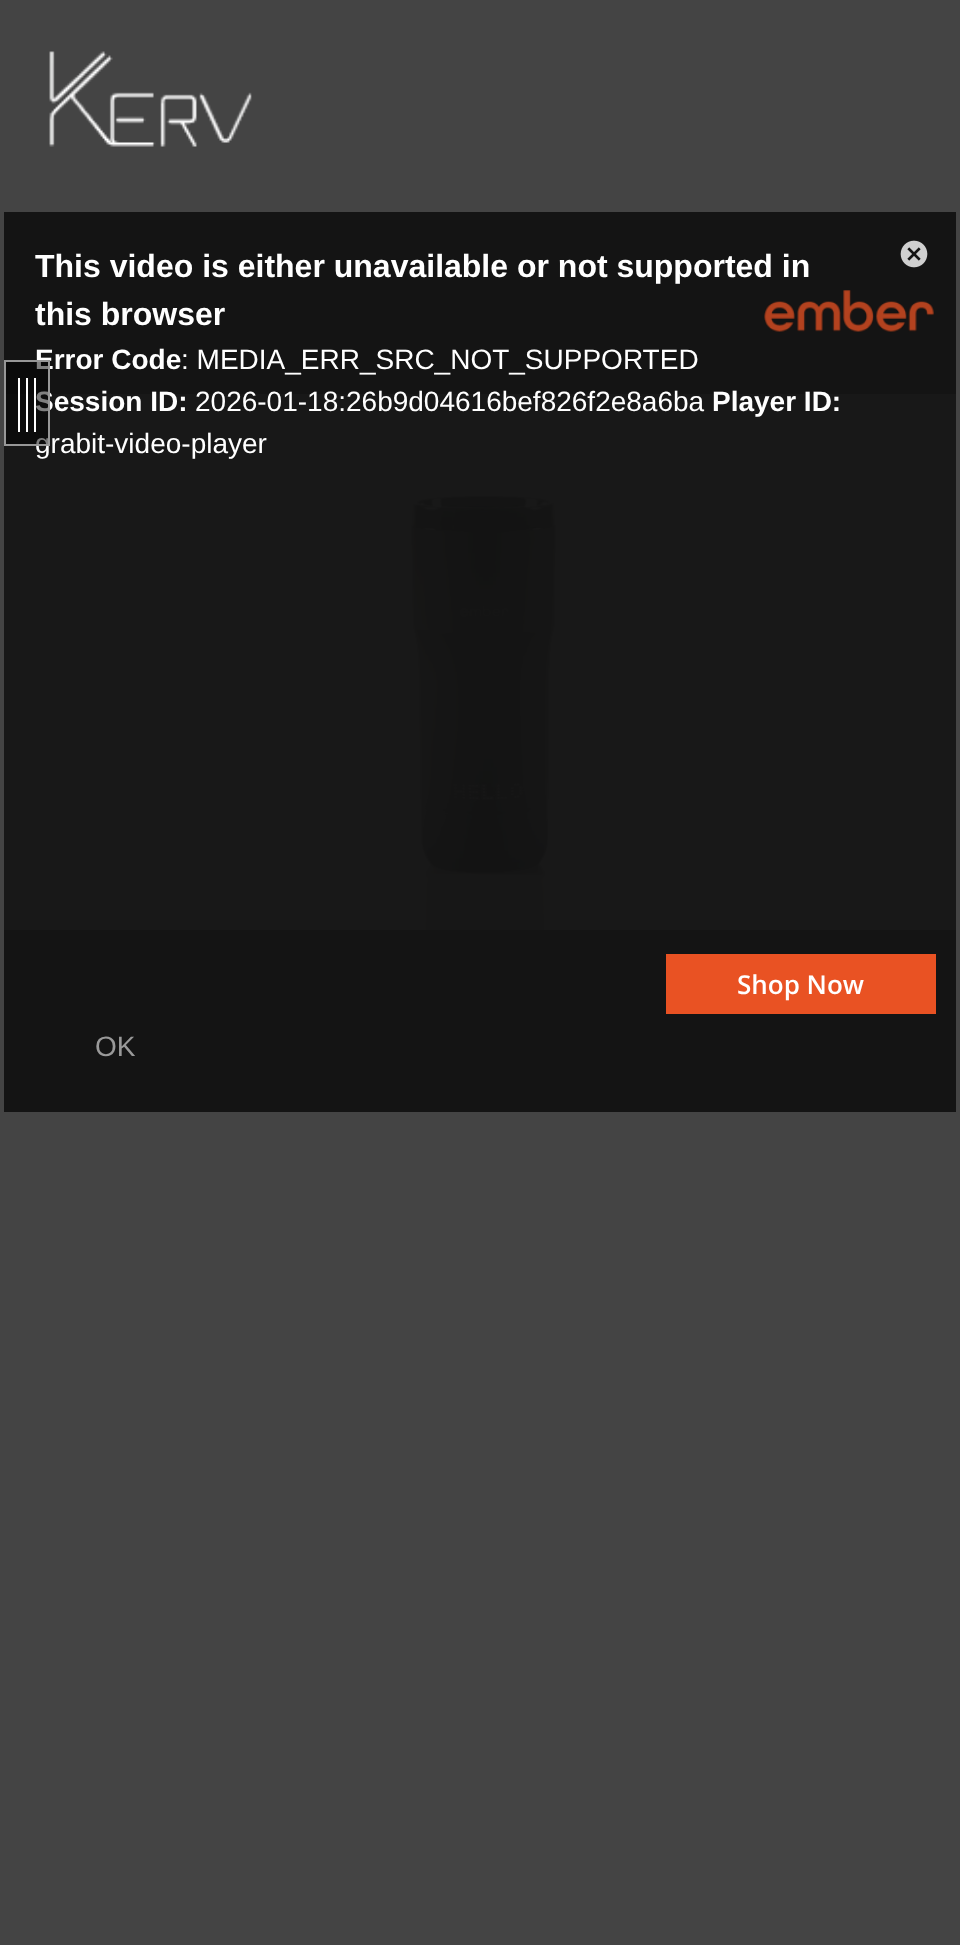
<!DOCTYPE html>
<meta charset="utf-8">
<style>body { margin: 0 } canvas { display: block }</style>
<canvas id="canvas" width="960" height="1945"></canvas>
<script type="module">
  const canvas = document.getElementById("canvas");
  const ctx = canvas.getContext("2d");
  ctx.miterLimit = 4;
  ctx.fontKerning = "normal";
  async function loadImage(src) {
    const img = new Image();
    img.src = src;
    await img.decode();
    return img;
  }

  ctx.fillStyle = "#444444";
  ctx.fillRect(0, 0, 960, 1945);
  ctx.drawImage(await loadImage("img1.png"), 49, 51, 203, 96);
  ctx.fillStyle = "#141414";
  ctx.fillRect(4, 212, 952, 900);
  ctx.drawImage(await loadImage("img2.png"), 4, 394, 952, 536);
  ctx.font = "bold 32px Liberation Sans";
  ctx.fillStyle = "#ffffff";
  ctx.fillText("This video is either unavailable or not supported in", 35, 277);
  ctx.fillText("this browser", 35, 325);
  ctx.font = "bold 28px Liberation Sans";
  ctx.fillText("Error Code", 35, 369);
  ctx.font = "28px Liberation Sans";
  ctx.fillText(": MEDIA_ERR_SRC_NOT_SUPPORTED", 181, 369);
  ctx.font = "bold 28px Liberation Sans";
  ctx.fillText("Session ID:", 35, 411);
  ctx.font = "28px Liberation Sans";
  ctx.fillText("2026-01-18:26b9d04616bef826f2e8a6ba", 195, 411);
  ctx.font = "bold 28px Liberation Sans";
  ctx.fillText("Player ID:", 712, 411);
  ctx.font = "28px Liberation Sans";
  ctx.fillText("grabit-video-player", 35, 453);
  ctx.drawImage(await loadImage("img3.png"), 900, 240, 28, 28);
  ctx.fillStyle = "#999999";
  ctx.fillText("OK", 95, 1056);
  ctx.drawImage(await loadImage("img4.png"), 764, 290, 170, 42);
  ctx.fillStyle = "rgba(0, 0, 0, 0.5)";
  ctx.beginPath();
  ctx.rect(5, 361, 44, 84);
  ctx.fill();
  ctx.strokeStyle = "#979797";
  ctx.lineWidth = 2;
  ctx.stroke();
  ctx.fillStyle = "#ffffff";
  ctx.fillRect(18, 378, 2, 54);
  ctx.fillRect(26, 378, 2, 54);
  ctx.fillRect(34, 378, 2, 54);
  ctx.fillStyle = "#e95223";
  ctx.fillRect(666, 954, 270, 60);
  ctx.font = "600 26px Open Sans";
  ctx.fillStyle = "#ffffff";
  ctx.fillText("Shop Now", 737, 994);
</script>
